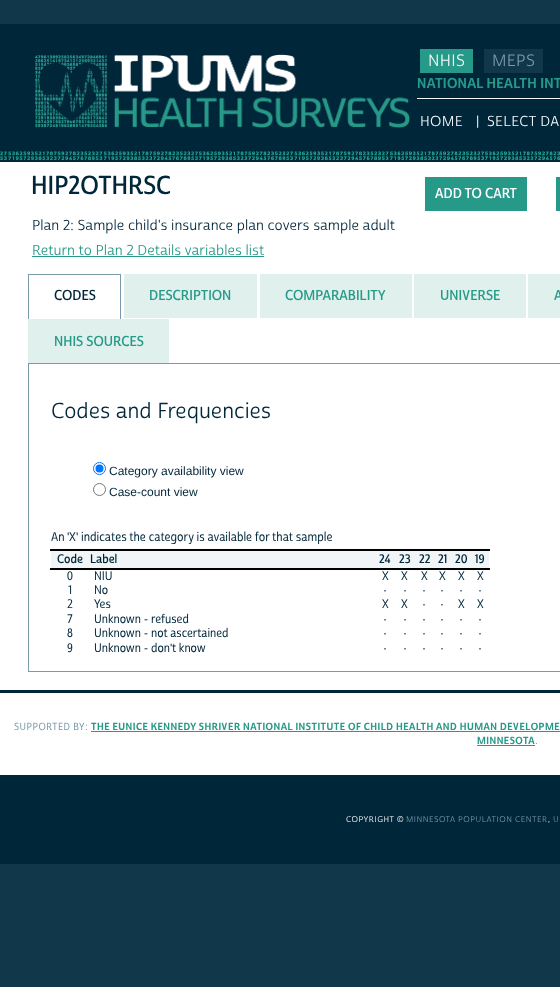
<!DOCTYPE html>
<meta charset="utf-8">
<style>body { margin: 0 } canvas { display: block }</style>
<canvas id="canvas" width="560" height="987"></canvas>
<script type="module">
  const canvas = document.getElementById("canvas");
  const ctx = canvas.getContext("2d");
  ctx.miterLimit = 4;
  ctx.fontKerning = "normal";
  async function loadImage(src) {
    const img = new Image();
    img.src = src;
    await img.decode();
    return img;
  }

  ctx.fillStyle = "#11374b";
  ctx.fillRect(0, 0, 560, 987);
  ctx.fillStyle = "#00263a";
  ctx.fillRect(0, 24, 560, 138);
  ctx.drawImage(await loadImage("img1.png"), 0, 151, 560, 10);
  ctx.drawImage(await loadImage("img2.png"), 35, 54, 375, 74);
  ctx.fillStyle = "#f5f8f9";
  ctx.fillRect(417, 98, 143, 1);
  ctx.fillStyle = "#279989";
  ctx.fillRect(420, 49, 53, 24);
  ctx.letterSpacing = "0.3px";
  ctx.font = "500 16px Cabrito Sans";
  ctx.fillStyle = "#f5f8f9";
  ctx.fillText("NHIS", 428, 66);
  ctx.fillStyle = "#11374b";
  ctx.fillRect(484, 49, 59, 24);
  ctx.fillStyle = "#7a99ac";
  ctx.fillText("MEPS", 492, 66);
  ctx.font = "800 14px Cabrito Sans";
  ctx.fillStyle = "#279989";
  ctx.fillText("NATIONAL HEALTH INT", 417, 88);
  ctx.font = "500 14px Cabrito Sans";
  ctx.fillStyle = "#f5f8f9";
  ctx.fillText("HOME", 420, 126);
  ctx.fillText("|", 476, 126);
  ctx.fillText("SELECT DA", 487, 126);
  ctx.fillStyle = "#ffffff";
  ctx.fillRect(0, 162, 560, 528);
  ctx.letterSpacing = "0px";
  ctx.font = "bold 25.25px Cabrito Sans";
  ctx.fillStyle = "#00263a";
  ctx.fillText("HIP2OTHRSC", 31, 194);
  ctx.font = "500 14px Cabrito Sans";
  ctx.fillText("Plan 2: Sample child's insurance plan covers sample adult", 32, 230);
  ctx.fillStyle = "#279989";
  ctx.fillText("Return to Plan 2 Details variables list", 32, 255);
  ctx.fillRect(32, 256, 232, 1);
  ctx.fillRect(425, 177, 102, 34);
  ctx.font = "bold 14px Cabrito Sans";
  ctx.fillStyle = "#ffffff";
  ctx.fillText("ADD TO CART", 435, 198);
  ctx.fillStyle = "#279989";
  ctx.fillRect(556, 177, 4, 34);
  ctx.fillStyle = "#7a99ac";
  ctx.fillRect(28, 274, 93, 1);
  ctx.fillRect(120, 274, 1, 45);
  ctx.fillRect(28, 274, 1, 45);
  ctx.fillStyle = "#00263a";
  ctx.fillText("CODES", 54, 300);
  ctx.fillStyle = "#dff0ed";
  ctx.fillRect(125, 275, 131, 43);
  ctx.fillRect(124, 274, 133, 1);
  ctx.fillRect(256, 274, 1, 44);
  ctx.fillRect(124, 274, 1, 44);
  ctx.fillStyle = "#279989";
  ctx.fillText("DESCRIPTION", 149, 300);
  ctx.fillStyle = "#dff0ed";
  ctx.fillRect(261, 275, 150, 43);
  ctx.fillRect(260, 274, 152, 1);
  ctx.fillRect(411, 274, 1, 44);
  ctx.fillRect(260, 274, 1, 44);
  ctx.fillStyle = "#279989";
  ctx.fillText("COMPARABILITY", 285, 300);
  ctx.fillStyle = "#dff0ed";
  ctx.fillRect(415, 275, 110, 43);
  ctx.fillRect(414, 274, 112, 1);
  ctx.fillRect(525, 274, 1, 44);
  ctx.fillRect(414, 274, 1, 44);
  ctx.fillStyle = "#279989";
  ctx.fillText("UNIVERSE", 440, 300);
  ctx.fillStyle = "#dff0ed";
  ctx.fillRect(529, 275, 31, 43);
  ctx.fillRect(528, 274, 32, 1);
  ctx.fillRect(528, 274, 1, 44);
  ctx.fillStyle = "#279989";
  ctx.fillText("A", 554, 300);
  ctx.fillStyle = "#dff0ed";
  ctx.fillRect(29, 320, 139, 43);
  ctx.fillRect(28, 319, 141, 1);
  ctx.fillRect(168, 319, 1, 44);
  ctx.fillRect(28, 319, 1, 44);
  ctx.fillStyle = "#279989";
  ctx.fillText("NHIS SOURCES", 54, 346);
  ctx.strokeStyle = "#7a99ac";
  ctx.strokeRect(28.5, 363.5, 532, 308);
  ctx.font = "500 21px Cabrito Sans";
  ctx.fillStyle = "#00263a";
  ctx.fillText("Codes and Frequencies", 51, 418);
  ctx.beginPath();
  ctx.arc(99.5, 468.5, 6, 0, Math.PI * 2);
  ctx.strokeStyle = "#0075ff";
  ctx.stroke();
  ctx.fillStyle = "#0075ff";
  ctx.beginPath();
  ctx.arc(99.5, 468.5, 4, 0, Math.PI * 2);
  ctx.fill();
  ctx.font = "12px Liberation Sans";
  ctx.fillStyle = "#00263a";
  ctx.fillText("Category availability view", 109, 475);
  ctx.beginPath();
  ctx.arc(99.5, 489.5, 6, 0, Math.PI * 2);
  ctx.strokeStyle = "#767676";
  ctx.stroke();
  ctx.fillText("Case-count view", 109, 496);
  ctx.font = "600 12.3px Cabrito Sans";
  ctx.fillText("An", 51, 541);
  ctx.font = "12.3px Liberation Sans";
  ctx.fillText("'", 67, 541);
  ctx.font = "600 12.3px Cabrito Sans";
  ctx.fillText("X", 69, 541);
  ctx.font = "12.3px Liberation Sans";
  ctx.fillText("'", 76, 541);
  ctx.font = "600 12.3px Cabrito Sans";
  ctx.fillText("indicates the category is available for that sample", 81, 541);
  ctx.fillStyle = "#f1f5f7";
  ctx.fillRect(51, 551, 438, 17);
  ctx.font = "bold 12px Cabrito Sans";
  ctx.fillStyle = "#00263a";
  ctx.fillText("Code", 57, 563);
  ctx.fillText("Label", 90, 563);
  ctx.fillText("24", 379, 563);
  ctx.fillText("23", 399, 563);
  ctx.fillText("22", 419, 563);
  ctx.fillText("21", 438, 563);
  ctx.fillText("20", 455, 563);
  ctx.fillStyle = "#000000";
  ctx.fillRect(50, 549, 440, 2);
  ctx.fillRect(50, 568, 440, 2);
  ctx.fillStyle = "#00263a";
  ctx.fillText("19", 475, 563);
  ctx.font = "600 12px Cabrito Sans";
  ctx.fillText("0", 67, 580);
  ctx.fillText("NIU", 94, 580);
  ctx.fillText("X", 382, 580);
  ctx.fillText("X", 401, 580);
  ctx.fillText("X", 421, 580);
  ctx.fillText("X", 439, 580);
  ctx.fillText("X", 458, 580);
  ctx.fillText("X", 477, 580);
  ctx.fillText("1", 67, 594);
  ctx.fillText("No", 94, 594);
  ctx.font = "12px Liberation Sans";
  ctx.fillText("·", 383, 594);
  ctx.fillText("·", 403, 594);
  ctx.fillText("·", 422, 594);
  ctx.fillText("·", 440, 594);
  ctx.fillText("·", 459, 594);
  ctx.fillText("·", 478, 594);
  ctx.font = "600 12px Cabrito Sans";
  ctx.fillText("2", 67, 608);
  ctx.fillText("Yes", 94, 608);
  ctx.fillText("X", 382, 608);
  ctx.fillText("X", 401, 608);
  ctx.font = "12px Liberation Sans";
  ctx.fillText("·", 422, 608);
  ctx.fillText("·", 440, 608);
  ctx.font = "600 12px Cabrito Sans";
  ctx.fillText("X", 458, 608);
  ctx.fillText("X", 477, 608);
  ctx.fillText("7", 67, 623);
  ctx.fillText("Unknown", 94, 623);
  ctx.font = "12px Liberation Sans";
  ctx.fillText("-", 144, 623);
  ctx.font = "600 12px Cabrito Sans";
  ctx.fillText("refused", 151, 623);
  ctx.font = "12px Liberation Sans";
  ctx.fillText("·", 383, 623);
  ctx.fillText("·", 403, 623);
  ctx.fillText("·", 422, 623);
  ctx.fillText("·", 440, 623);
  ctx.fillText("·", 459, 623);
  ctx.fillText("·", 478, 623);
  ctx.font = "600 12px Cabrito Sans";
  ctx.fillText("8", 67, 637);
  ctx.fillText("Unknown", 94, 637);
  ctx.font = "12px Liberation Sans";
  ctx.fillText("-", 144, 637);
  ctx.font = "600 12px Cabrito Sans";
  ctx.fillText("not ascertained", 151, 637);
  ctx.font = "12px Liberation Sans";
  ctx.fillText("·", 383, 637);
  ctx.fillText("·", 403, 637);
  ctx.fillText("·", 422, 637);
  ctx.fillText("·", 440, 637);
  ctx.fillText("·", 459, 637);
  ctx.fillText("·", 478, 637);
  ctx.font = "600 12px Cabrito Sans";
  ctx.fillText("9", 67, 652);
  ctx.fillText("Unknown", 94, 652);
  ctx.fillText("don", 151, 652);
  ctx.font = "12px Liberation Sans";
  ctx.fillText("'", 170, 652);
  ctx.font = "600 12px Cabrito Sans";
  ctx.fillText("t know", 172, 652);
  ctx.font = "12px Liberation Sans";
  ctx.fillText("-", 144, 652);
  ctx.fillText("·", 383, 652);
  ctx.fillText("·", 403, 652);
  ctx.fillText("·", 422, 652);
  ctx.fillText("·", 440, 652);
  ctx.fillText("·", 459, 652);
  ctx.fillText("·", 478, 652);
  ctx.fillStyle = "#ffffff";
  ctx.fillRect(0, 693, 560, 82);
  ctx.fillStyle = "#00263a";
  ctx.fillRect(0, 690, 560, 3);
  ctx.letterSpacing = "0.5px";
  ctx.font = "600 10px Cabrito Sans";
  ctx.fillStyle = "#7a99ac";
  ctx.fillText("SUPPORTED BY", 14, 730);
  ctx.font = "10px Liberation Sans";
  ctx.fillText(":", 85, 730);
  ctx.font = "800 10px Cabrito Sans";
  ctx.fillStyle = "#279989";
  ctx.fillText("THE EUNICE KENNEDY SHRIVER NATIONAL INSTITUTE OF CHILD HEALTH AND HUMAN DEVELOPME", 91, 730);
  ctx.fillRect(91, 731, 469, 1);
  ctx.fillText("MINNESOTA", 477, 744);
  ctx.fillRect(477, 745, 58, 1);
  ctx.font = "10px Liberation Sans";
  ctx.fillStyle = "#7a99ac";
  ctx.fillText(".", 535, 744);
  ctx.fillStyle = "#00263a";
  ctx.fillRect(0, 775, 560, 89);
  ctx.font = "500 8px Cabrito Sans";
  ctx.fillStyle = "#ffffff";
  ctx.fillText("COPYRIGHT ©", 346, 822);
  ctx.fillStyle = "#7a99ac";
  ctx.fillText("MINNESOTA POPULATION CENTER", 406, 822);
  ctx.fillStyle = "#ffffff";
  ctx.fillText(",", 548, 822);
  ctx.fillStyle = "#7a99ac";
  ctx.fillText("U", 553, 822);
</script>
